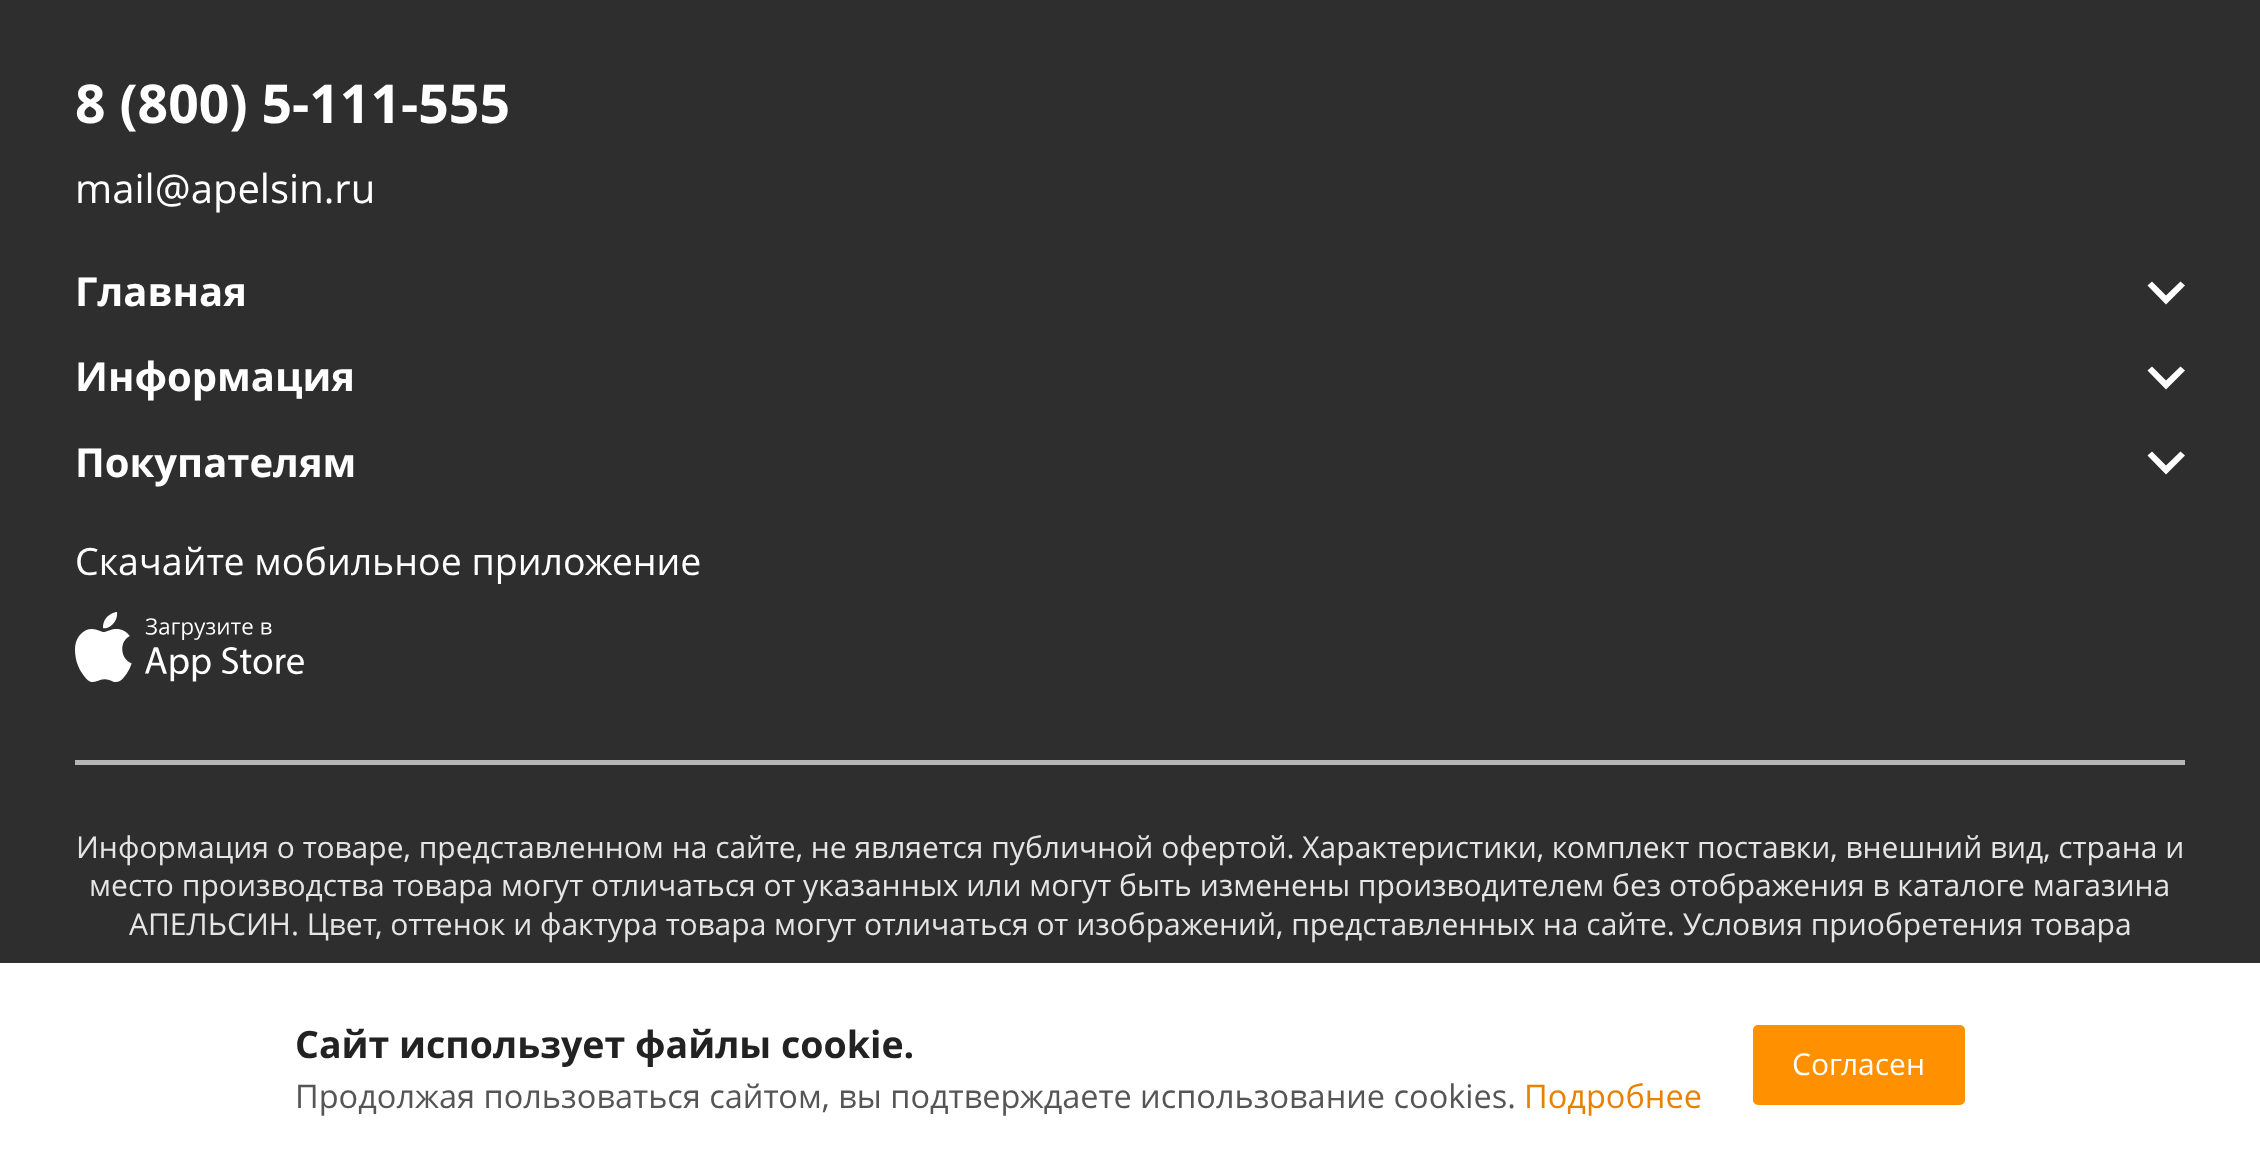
<!DOCTYPE html>
<meta charset="utf-8">
<style>body { margin: 0 } canvas { display: block }</style>
<canvas id="canvas" width="2260" height="1166"></canvas>
<script type="module">
  const canvas = document.getElementById("canvas");
  const ctx = canvas.getContext("2d");
  ctx.miterLimit = 4;
  ctx.fontKerning = "normal";
  async function loadImage(src) {
    const img = new Image();
    img.src = src;
    await img.decode();
    return img;
  }

  ctx.fillStyle = "#2e2e2f";
  ctx.fillRect(0, 0, 2260, 1166);
  ctx.font = "bold 53.5px Open Sans";
  ctx.fillStyle = "#ffffff";
  ctx.fillText("8 (800) 5-111-555", 75, 123);
  ctx.font = "40px Open Sans";
  ctx.fillText("mail@apelsin.ru", 75, 203);
  ctx.font = "bold 40px Open Sans";
  ctx.fillText("Главная", 75, 306);
  ctx.beginPath();
  ctx.moveTo(2180.5, 281.5);
  ctx.lineTo(2166, 295.5);
  ctx.lineTo(2152, 281.5);
  ctx.lineTo(2147.5, 285.5);
  ctx.lineTo(2166, 304.5);
  ctx.lineTo(2185, 285.5);
  ctx.closePath();
  ctx.fill();
  ctx.fillText("Информация", 75, 391);
  ctx.beginPath();
  ctx.moveTo(2180.5, 366.5);
  ctx.lineTo(2166, 380.5);
  ctx.lineTo(2152, 366.5);
  ctx.lineTo(2147.5, 370.5);
  ctx.lineTo(2166, 389.5);
  ctx.lineTo(2185, 370.5);
  ctx.closePath();
  ctx.fill();
  ctx.fillText("Покупателям", 75, 477);
  ctx.beginPath();
  ctx.moveTo(2180.5, 451.5);
  ctx.lineTo(2166, 465.5);
  ctx.lineTo(2152, 451.5);
  ctx.lineTo(2147.5, 455.5);
  ctx.lineTo(2166, 474.5);
  ctx.lineTo(2185, 455.5);
  ctx.closePath();
  ctx.fill();
  ctx.font = "37.5px Open Sans";
  ctx.fillText("Скачайте мобильное приложение", 75, 575);
  ctx.drawImage(await loadImage("img1.png"), 75, 612, 229, 70);
  ctx.fillStyle = "#b6b6b6";
  ctx.fillRect(75, 760, 2110, 5);
  ctx.font = "30px Open Sans";
  ctx.fillStyle = "#e5e5e5";
  ctx.fillText("Информация о товаре, представленном на сайте, не является публичной офертой. Характеристики, комплект поставки, внешний вид, страна и", 76, 858);
  ctx.fillText("место производства товара могут отличаться от указанных или могут быть изменены производителем без отображения в каталоге магазина", 89, 896);
  ctx.fillText("АПЕЛЬСИН. Цвет, оттенок и фактура товара могут отличаться от изображений, представленных на сайте. Условия приобретения товара", 129, 935);
  ctx.fillStyle = "#ffffff";
  ctx.fillRect(0, 963, 2260, 203);
  ctx.font = "bold 37.5px Open Sans";
  ctx.fillStyle = "#222222";
  ctx.fillText("Сайт использует файлы cookie.", 295, 1058);
  ctx.font = "32.5px Open Sans";
  ctx.fillStyle = "#555555";
  ctx.fillText("Продолжая пользоваться сайтом, вы подтверждаете использование cookies.", 295, 1108);
  ctx.fillStyle = "#e68200";
  ctx.fillText("Подробнее", 1524, 1108);
  ctx.fillStyle = "#ff9000";
  ctx.beginPath();
  ctx.roundRect(1754.5, 1026.5, 209, 77, 3.5);
  ctx.fill();
  ctx.strokeStyle = "#ff9000";
  ctx.lineWidth = 3;
  ctx.stroke();
  ctx.font = "30px Open Sans";
  ctx.fillStyle = "#ffffff";
  ctx.fillText("Согласен", 1792, 1075);
</script>
